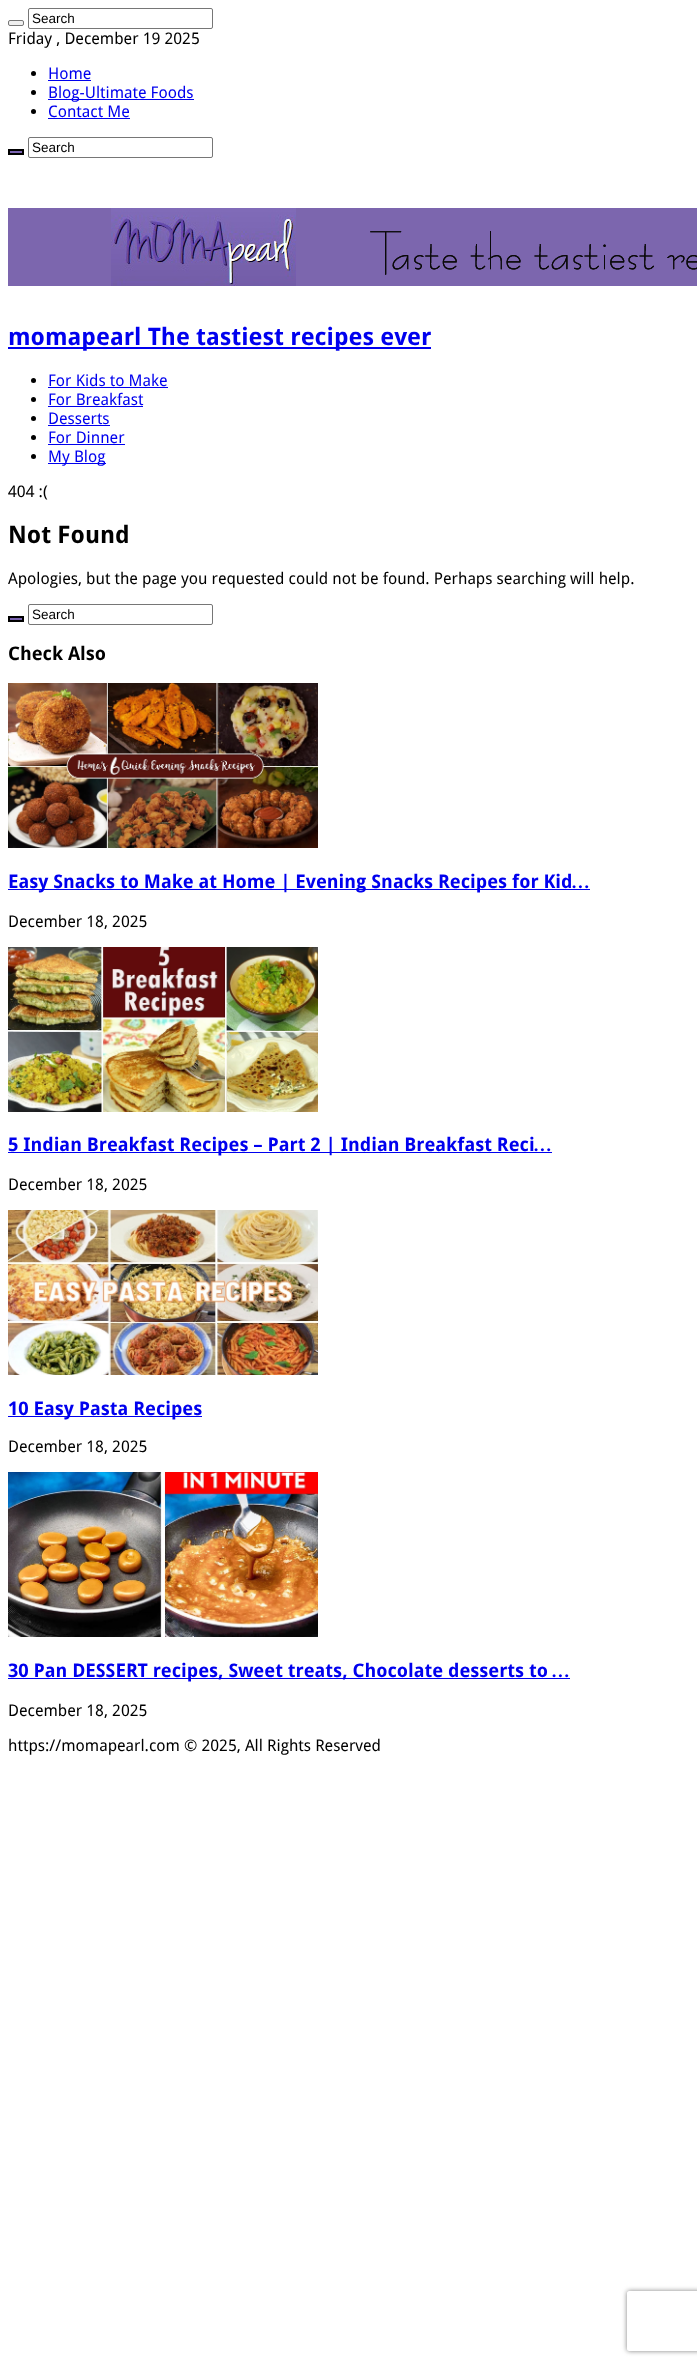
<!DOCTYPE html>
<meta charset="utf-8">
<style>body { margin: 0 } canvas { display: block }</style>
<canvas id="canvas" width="697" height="2365"></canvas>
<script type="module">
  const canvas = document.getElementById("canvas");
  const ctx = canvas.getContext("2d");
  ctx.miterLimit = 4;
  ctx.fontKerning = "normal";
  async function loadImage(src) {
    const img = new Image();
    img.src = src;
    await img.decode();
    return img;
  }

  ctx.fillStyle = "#ffffff";
  ctx.fillRect(0, 0, 697, 2365);
  ctx.fillStyle = "#efefef";
  ctx.beginPath();
  ctx.roundRect(8.5, 20.5, 15, 5, 1.5);
  ctx.fill();
  ctx.strokeStyle = "#767676";
  ctx.stroke();
  ctx.beginPath();
  ctx.roundRect(28.5, 8.5, 184, 20, 1.5);
  ctx.stroke();
  ctx.font = "13.5px Liberation Sans";
  ctx.fillStyle = "#000000";
  ctx.fillText("Search", 32, 23);
  ctx.font = "16px Droid Sans";
  ctx.fillText("Friday , December 19 2025", 8, 44);
  ctx.beginPath();
  ctx.arc(33.5, 73.5, 2.5, 0, Math.PI * 2);
  ctx.fill();
  ctx.fillStyle = "#0000ee";
  ctx.fillText("Home", 48, 79);
  ctx.fillRect(48, 80, 43, 1);
  ctx.fillStyle = "#000000";
  ctx.beginPath();
  ctx.arc(33.5, 92.5, 2.5, 0, Math.PI * 2);
  ctx.fill();
  ctx.fillStyle = "#0000ee";
  ctx.fillRect(48, 99, 146, 1);
  ctx.fillText("Blog-Ultimate Foods", 48, 98);
  ctx.fillStyle = "#000000";
  ctx.beginPath();
  ctx.arc(33.5, 111.5, 2.5, 0, Math.PI * 2);
  ctx.fill();
  ctx.fillStyle = "#0000ee";
  ctx.fillText("Contact Me", 48, 117);
  ctx.fillRect(48, 118, 82, 1);
  ctx.fillStyle = "#7a63b1";
  ctx.beginPath();
  ctx.rect(9, 150, 14, 4);
  ctx.fill();
  ctx.strokeStyle = "#000000";
  ctx.lineWidth = 2;
  ctx.stroke();
  ctx.beginPath();
  ctx.roundRect(28.5, 137.5, 184, 20, 1.5);
  ctx.strokeStyle = "#767676";
  ctx.lineWidth = 1;
  ctx.stroke();
  ctx.font = "13.5px Liberation Sans";
  ctx.fillStyle = "#000000";
  ctx.fillText("Search", 32, 152);
  ctx.drawImage(await loadImage("img1.png"), 8, 208, 689, 78);
  ctx.fillStyle = "#0000ee";
  ctx.fillRect(8, 347, 423, 2);
  ctx.font = "bold 24px Droid Sans";
  ctx.fillText("momapearl The tastiest recipes ever", 8, 345);
  ctx.fillStyle = "#000000";
  ctx.beginPath();
  ctx.arc(33.5, 380.5, 2.5, 0, Math.PI * 2);
  ctx.fill();
  ctx.font = "16px Droid Sans";
  ctx.fillStyle = "#0000ee";
  ctx.fillText("For Kids to Make", 48, 386);
  ctx.fillRect(48, 387, 120, 1);
  ctx.fillStyle = "#000000";
  ctx.beginPath();
  ctx.arc(33.5, 399.5, 2.5, 0, Math.PI * 2);
  ctx.fill();
  ctx.fillStyle = "#0000ee";
  ctx.fillText("For Breakfast", 48, 405);
  ctx.fillRect(48, 406, 95, 1);
  ctx.fillStyle = "#000000";
  ctx.beginPath();
  ctx.arc(33.5, 418.5, 2.5, 0, Math.PI * 2);
  ctx.fill();
  ctx.fillStyle = "#0000ee";
  ctx.fillText("Desserts", 48, 424);
  ctx.fillRect(48, 425, 62, 1);
  ctx.fillStyle = "#000000";
  ctx.beginPath();
  ctx.arc(33.5, 437.5, 2.5, 0, Math.PI * 2);
  ctx.fill();
  ctx.fillStyle = "#0000ee";
  ctx.fillText("For Dinner", 48, 443);
  ctx.fillRect(48, 444, 77, 1);
  ctx.fillStyle = "#000000";
  ctx.beginPath();
  ctx.arc(33.5, 456.5, 2.5, 0, Math.PI * 2);
  ctx.fill();
  ctx.fillStyle = "#0000ee";
  ctx.fillRect(48, 463, 58, 1);
  ctx.fillText("My Blog", 48, 462);
  ctx.fillStyle = "#000000";
  ctx.fillText("404 :(", 8, 497);
  ctx.font = "bold 24px Droid Sans";
  ctx.fillText("Not Found", 8, 543);
  ctx.font = "16px Droid Sans";
  ctx.fillText("Apologies, but the page you requested could not be found. Perhaps searching will help.", 8, 584);
  ctx.fillStyle = "#7a63b1";
  ctx.beginPath();
  ctx.rect(9, 617, 14, 4);
  ctx.fill();
  ctx.strokeStyle = "#000000";
  ctx.lineWidth = 2;
  ctx.stroke();
  ctx.beginPath();
  ctx.roundRect(28.5, 604.5, 184, 20, 1.5);
  ctx.strokeStyle = "#767676";
  ctx.lineWidth = 1;
  ctx.stroke();
  ctx.font = "13.5px Liberation Sans";
  ctx.fillStyle = "#000000";
  ctx.fillText("Search", 32, 619);
  ctx.font = "bold 18.75px Droid Sans";
  ctx.fillText("Check Also", 8, 660);
  ctx.drawImage(await loadImage("img2.png"), 8, 683, 310, 165);
  ctx.fillStyle = "#0000ee";
  ctx.fillRect(8, 889, 582, 1);
  ctx.fillText("Easy Snacks to Make at Home | Evening Snacks Recipes for Kid", 8, 888);
  ctx.font = "bold 18.75px Liberation Serif";
  ctx.fillText("…", 571, 888);
  ctx.font = "16px Droid Sans";
  ctx.fillStyle = "#000000";
  ctx.fillText("December 18, 2025", 8, 927);
  ctx.drawImage(await loadImage("img3.png"), 8, 947, 310, 165);
  ctx.fillStyle = "#0000ee";
  ctx.fillRect(8, 1152, 544, 1);
  ctx.font = "bold 18.75px Droid Sans";
  ctx.fillText("5 Indian Breakfast Recipes – Part 2 | Indian Breakfast Reci", 8, 1151);
  ctx.font = "bold 18.75px Liberation Serif";
  ctx.fillText("…", 533, 1151);
  ctx.font = "16px Droid Sans";
  ctx.fillStyle = "#000000";
  ctx.fillText("December 18, 2025", 8, 1190);
  ctx.drawImage(await loadImage("img4.png"), 8, 1210, 310, 165);
  ctx.fillStyle = "#0000ee";
  ctx.fillRect(8, 1416, 194, 1);
  ctx.font = "bold 18.75px Droid Sans";
  ctx.fillText("10 Easy Pasta Recipes", 8, 1415);
  ctx.font = "16px Droid Sans";
  ctx.fillStyle = "#000000";
  ctx.fillText("December 18, 2025", 8, 1452);
  ctx.drawImage(await loadImage("img5.png"), 8, 1472, 310, 165);
  ctx.fillStyle = "#0000ee";
  ctx.fillRect(8, 1678, 562, 1);
  ctx.font = "bold 18.75px Droid Sans";
  ctx.fillText("30 Pan DESSERT recipes, Sweet treats, Chocolate desserts to", 8, 1677);
  ctx.font = "bold 18.75px Liberation Serif";
  ctx.fillText("…", 551, 1677);
  ctx.font = "16px Droid Sans";
  ctx.fillStyle = "#000000";
  ctx.fillText("December 18, 2025", 8, 1716);
  ctx.fillText("https://momapearl.com © 2025, All Rights Reserved", 8, 1751);
  ctx.save();
  ctx.beginPath();
  ctx.moveTo(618, 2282);
  ctx.lineTo(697, 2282);
  ctx.lineTo(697, 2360);
  ctx.lineTo(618, 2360);
  ctx.closePath();
  ctx.moveTo(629, 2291);
  ctx.lineTo(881, 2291);
  ctx.bezierCurveTo(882, 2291, 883, 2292, 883, 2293);
  ctx.lineTo(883, 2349);
  ctx.bezierCurveTo(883, 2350, 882, 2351, 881, 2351);
  ctx.lineTo(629, 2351);
  ctx.bezierCurveTo(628, 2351, 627, 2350, 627, 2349);
  ctx.lineTo(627, 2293);
  ctx.bezierCurveTo(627, 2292, 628, 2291, 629, 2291);
  ctx.closePath();
  ctx.clip("evenodd");
  ctx.fillStyle = "#808080";
  ctx.filter = "blur(2.5px)";
  ctx.beginPath();
  ctx.roundRect(627, 2291, 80, 60, 2);
  ctx.fill();
  ctx.filter = "none";
  ctx.restore();
</script>
